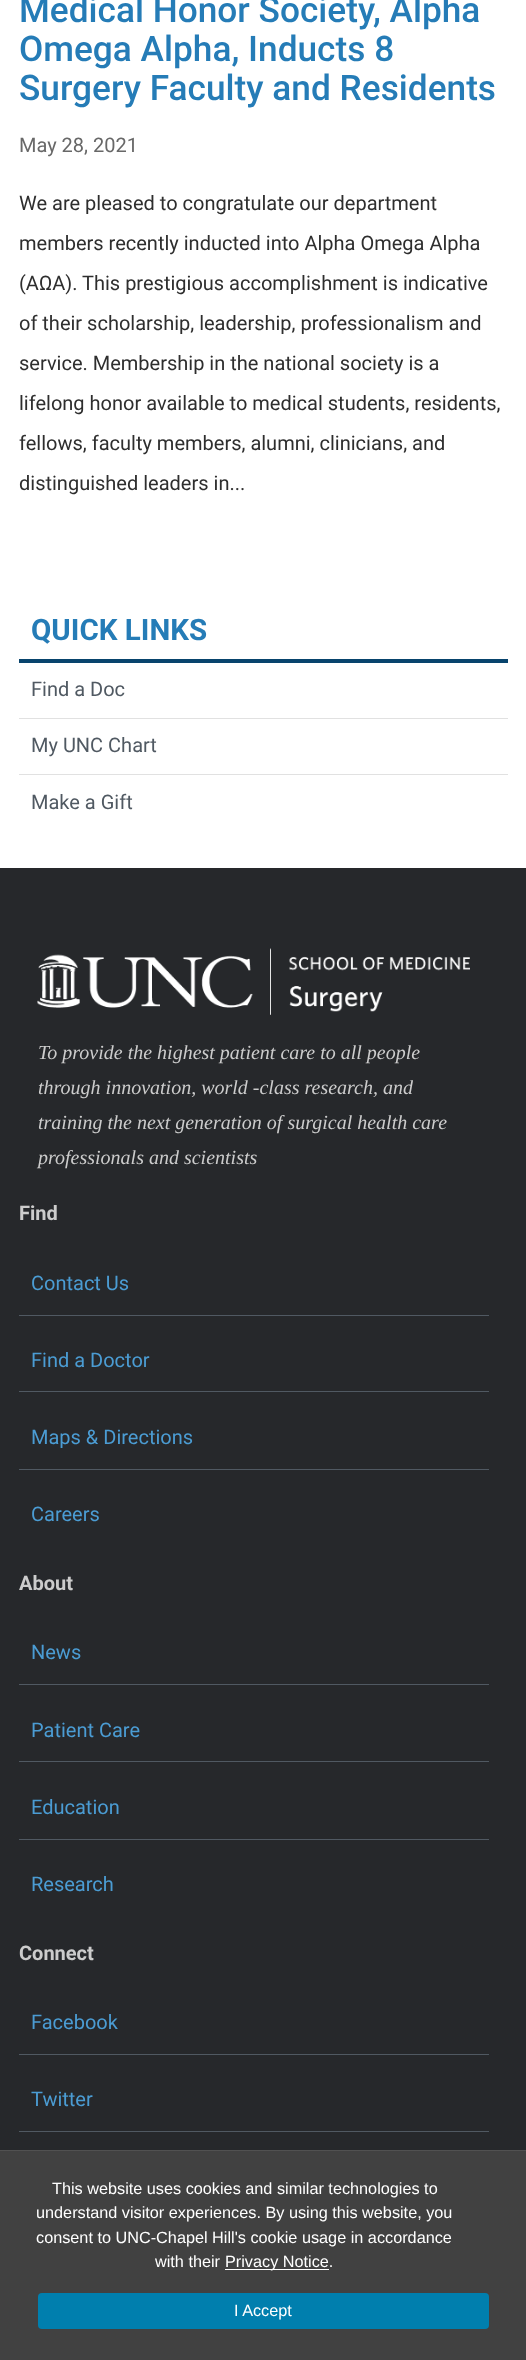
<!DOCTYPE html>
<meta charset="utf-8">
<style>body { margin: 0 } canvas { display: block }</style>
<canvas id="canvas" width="526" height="2360"></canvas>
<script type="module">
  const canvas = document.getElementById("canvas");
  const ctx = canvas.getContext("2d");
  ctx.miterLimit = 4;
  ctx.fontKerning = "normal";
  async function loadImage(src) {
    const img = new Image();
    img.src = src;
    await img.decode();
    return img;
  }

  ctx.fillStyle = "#ffffff";
  ctx.fillRect(0, 0, 526, 2360);
  ctx.font = "500 35.25px Roboto";
  ctx.fillStyle = "#257cb7";
  ctx.fillText("Medical Honor Society, Alpha", 19, 22);
  ctx.fillText("Omega Alpha, Inducts 8", 19, 61);
  ctx.fillText("Surgery Faculty and Residents", 19, 100);
  ctx.font = "20px Roboto";
  ctx.fillStyle = "#686868";
  ctx.fillText("May 28, 2021", 19, 152);
  ctx.fillStyle = "#2e2e2e";
  ctx.fillText("We are pleased to congratulate our department", 19, 210);
  ctx.fillText("members recently inducted into Alpha Omega Alpha", 19, 250);
  ctx.fillText("(AΩA). This prestigious accomplishment is indicative", 19, 290);
  ctx.fillText("of their scholarship, leadership, professionalism and", 19, 330);
  ctx.fillText("service. Membership in the national society is a", 19, 370);
  ctx.fillText("lifelong honor available to medical students, residents,", 19, 410);
  ctx.fillText("fellows, faculty members, alumni, clinicians, and", 19, 450);
  ctx.fillText("distinguished leaders in...", 19, 490);
  ctx.fillStyle = "#08446d";
  ctx.fillRect(19, 659, 489, 4);
  ctx.font = "bold 29.5px Roboto";
  ctx.fillStyle = "#257cb7";
  ctx.fillText("QUICK LINKS", 31, 640);
  ctx.fillStyle = "#e1e1e1";
  ctx.fillRect(19, 718, 489, 1);
  ctx.font = "20px Roboto";
  ctx.fillStyle = "#505962";
  ctx.fillText("Find a Doc", 31, 696);
  ctx.fillStyle = "#e1e1e1";
  ctx.fillRect(19, 774, 489, 1);
  ctx.fillStyle = "#505962";
  ctx.fillText("My UNC Chart", 31, 752);
  ctx.fillText("Make a Gift", 31, 809);
  ctx.fillStyle = "#26282b";
  ctx.fillRect(0, 868, 526, 1282);
  ctx.drawImage(await loadImage("img1.png"), 37, 948, 433, 67);
  ctx.font = "italic 20px Liberation Serif";
  ctx.fillStyle = "#cccccc";
  ctx.fillText("To provide the highest patient care to all people", 38, 1059);
  ctx.fillText("through innovation, world -class research, and", 38, 1094);
  ctx.fillText("training the next generation of surgical health care", 38, 1129);
  ctx.fillText("professionals and scientists", 38, 1164);
  ctx.font = "bold 20px Roboto";
  ctx.fillText("Find", 19, 1220);
  ctx.fillStyle = "#505962";
  ctx.fillRect(19, 1315, 470, 1);
  ctx.font = "20px Roboto";
  ctx.fillStyle = "#4b9cd3";
  ctx.fillText("Contact Us", 31, 1290);
  ctx.fillStyle = "#505962";
  ctx.fillRect(19, 1391, 470, 1);
  ctx.fillStyle = "#4b9cd3";
  ctx.fillText("Find a Doctor", 31, 1367);
  ctx.fillStyle = "#505962";
  ctx.fillRect(19, 1469, 470, 1);
  ctx.fillStyle = "#4b9cd3";
  ctx.fillText("Maps & Directions", 31, 1444);
  ctx.fillText("Careers", 31, 1521);
  ctx.font = "bold 20px Roboto";
  ctx.fillStyle = "#cccccc";
  ctx.fillText("About", 19, 1590);
  ctx.fillStyle = "#505962";
  ctx.fillRect(19, 1684, 470, 1);
  ctx.font = "20px Roboto";
  ctx.fillStyle = "#4b9cd3";
  ctx.fillText("News", 31, 1659);
  ctx.fillStyle = "#505962";
  ctx.fillRect(19, 1761, 470, 1);
  ctx.fillStyle = "#4b9cd3";
  ctx.fillText("Patient Care", 31, 1737);
  ctx.fillStyle = "#505962";
  ctx.fillRect(19, 1839, 470, 1);
  ctx.fillStyle = "#4b9cd3";
  ctx.fillText("Education", 31, 1814);
  ctx.fillText("Research", 31, 1891);
  ctx.font = "bold 20px Roboto";
  ctx.fillStyle = "#cccccc";
  ctx.fillText("Connect", 19, 1960);
  ctx.fillStyle = "#505962";
  ctx.fillRect(19, 2054, 470, 1);
  ctx.font = "20px Roboto";
  ctx.fillStyle = "#4b9cd3";
  ctx.fillText("Facebook", 31, 2029);
  ctx.fillStyle = "#505962";
  ctx.fillRect(19, 2131, 470, 1);
  ctx.fillStyle = "#4b9cd3";
  ctx.fillText("Twitter", 31, 2106);
  ctx.fillStyle = "#414141";
  ctx.fillRect(0, 2151, 526, 209);
  ctx.fillStyle = "#515151";
  ctx.fillRect(0, 2150, 526, 1);
  ctx.font = "16.25px Liberation Sans";
  ctx.fillStyle = "#ffffff";
  ctx.fillText("This website uses cookies and similar technologies to", 52, 2194);
  ctx.fillText("understand visitor experiences. By using this website, you", 36, 2218);
  ctx.fillText("consent to UNC-Chapel Hill's cookie usage in accordance", 36, 2243);
  ctx.fillText("with their", 155, 2267);
  ctx.fillRect(225, 2269, 104, 1);
  ctx.fillText("Privacy Notice.", 225, 2267);
  ctx.fillStyle = "#007fae";
  ctx.beginPath();
  ctx.roundRect(38, 2293, 451, 36, 4);
  ctx.fill();
  ctx.fillStyle = "#ffffff";
  ctx.fillText("I Accept", 234, 2316);
</script>
